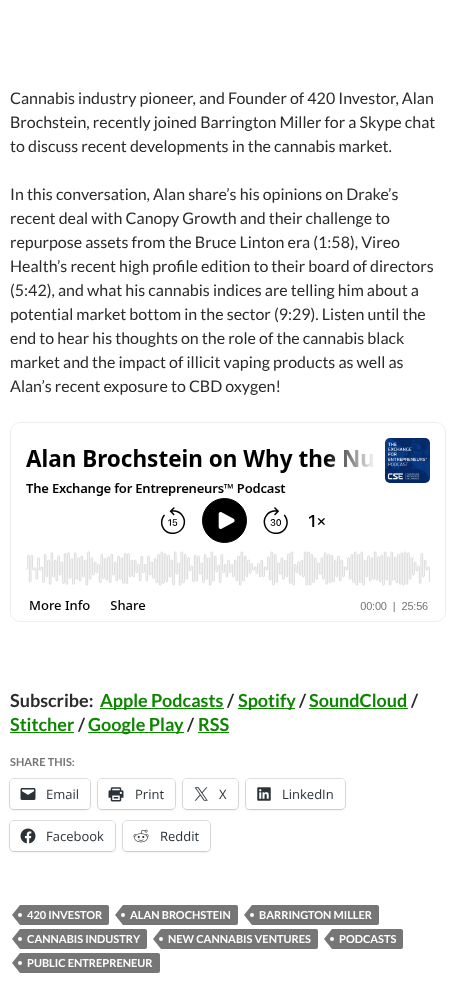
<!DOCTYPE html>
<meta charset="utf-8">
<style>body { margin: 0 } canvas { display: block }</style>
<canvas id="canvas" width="456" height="1002"></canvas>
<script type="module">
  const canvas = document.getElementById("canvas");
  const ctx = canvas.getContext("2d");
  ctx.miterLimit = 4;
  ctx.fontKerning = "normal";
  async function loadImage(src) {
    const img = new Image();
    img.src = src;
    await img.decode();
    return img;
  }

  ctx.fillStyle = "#ffffff";
  ctx.fillRect(0, 0, 456, 1002);
  ctx.font = "16px Lato";
  ctx.fillStyle = "#2b2b2b";
  ctx.fillText("Cannabis industry pioneer, and Founder of 420 Investor, Alan", 10, 104);
  ctx.fillText("Brochstein, recently joined Barrington Miller for a Skype chat", 10, 128);
  ctx.fillText("to discuss recent developments in the cannabis market.", 10, 152);
  ctx.fillText("In this conversation, Alan share’s his opinions on Drake’s", 10, 200);
  ctx.fillText("recent deal with Canopy Growth and their challenge to", 10, 224);
  ctx.fillText("repurpose assets from the Bruce Linton era (1:58), Vireo", 10, 248);
  ctx.fillText("Health’s recent high profile edition to their board of directors", 10, 272);
  ctx.fillText("(5:42), and what his cannabis indices are telling him about a", 10, 296);
  ctx.fillText("potential market bottom in the sector (9:29). Listen until the", 10, 320);
  ctx.fillText("end to hear his thoughts on the role of the cannabis black", 10, 344);
  ctx.fillText("market and the impact of illicit vaping products as well as", 10, 368);
  ctx.fillText("Alan’s recent exposure to CBD oxygen!", 10, 392);
  ctx.drawImage(await loadImage("img1.png"), 10, 422, 436, 200);
  ctx.font = "bold 18px Lato";
  ctx.fillText("Subscribe:", 10, 707);
  ctx.fillStyle = "#0d8600";
  ctx.fillRect(100, 708, 124, 1);
  ctx.fillText("Apple Podcasts", 100, 707);
  ctx.fillStyle = "#2b2b2b";
  ctx.fillText("/", 227, 707);
  ctx.fillStyle = "#0d8600";
  ctx.fillRect(238, 708, 57, 1);
  ctx.fillText("Spotify", 238, 707);
  ctx.fillStyle = "#2b2b2b";
  ctx.fillText("/", 299, 707);
  ctx.fillStyle = "#0d8600";
  ctx.fillText("SoundCloud", 309, 707);
  ctx.fillRect(309, 708, 99, 1);
  ctx.fillStyle = "#2b2b2b";
  ctx.fillText("/", 411, 707);
  ctx.fillStyle = "#0d8600";
  ctx.fillText("Stitcher", 10, 731);
  ctx.fillRect(10, 732, 64, 1);
  ctx.fillStyle = "#2b2b2b";
  ctx.fillText("/", 78, 731);
  ctx.fillStyle = "#0d8600";
  ctx.fillRect(88, 732, 96, 1);
  ctx.fillText("Google Play", 88, 731);
  ctx.fillStyle = "#2b2b2b";
  ctx.fillText("/", 187, 731);
  ctx.fillStyle = "#0d8600";
  ctx.fillText("RSS", 198, 731);
  ctx.fillRect(198, 732, 31, 1);
  ctx.font = "bold 11px Lato";
  ctx.fillStyle = "#767676";
  ctx.fillText("SHARE THIS:", 10, 766);
  ctx.beginPath();
  ctx.roundRect(9.5, 778.5, 81, 31, 4.5);
  ctx.strokeStyle = "#e0e0e0";
  ctx.stroke();
  ctx.fillStyle = "rgba(0, 0, 0, 0.12)";
  ctx.filter = "blur(1px)";
  ctx.beginPath();
  ctx.roundRect(10, 780, 80, 30, 4);
  ctx.fill();
  ctx.filter = "none";
  ctx.fillStyle = "#ffffff";
  ctx.beginPath();
  ctx.roundRect(10, 779, 80, 30, 4);
  ctx.fill();
  ctx.drawImage(await loadImage("img2.png"), 20, 788, 16, 12);
  ctx.font = "13px Open Sans";
  ctx.fillStyle = "#2c3338";
  ctx.fillText("Email", 46, 799);
  ctx.beginPath();
  ctx.roundRect(97.5, 778.5, 78, 31, 4.5);
  ctx.stroke();
  ctx.fillStyle = "rgba(0, 0, 0, 0.12)";
  ctx.filter = "blur(1px)";
  ctx.beginPath();
  ctx.roundRect(98, 780, 77, 30, 4);
  ctx.fill();
  ctx.filter = "none";
  ctx.fillStyle = "#ffffff";
  ctx.beginPath();
  ctx.roundRect(98, 779, 77, 30, 4);
  ctx.fill();
  ctx.drawImage(await loadImage("img3.png"), 108, 787, 16, 15);
  ctx.fillStyle = "#2c3338";
  ctx.fillText("Print", 135, 799);
  ctx.beginPath();
  ctx.roundRect(182.5, 778.5, 56, 31, 4.5);
  ctx.stroke();
  ctx.fillStyle = "rgba(0, 0, 0, 0.12)";
  ctx.filter = "blur(1px)";
  ctx.beginPath();
  ctx.roundRect(183, 780, 55, 30, 4);
  ctx.fill();
  ctx.filter = "none";
  ctx.fillStyle = "#ffffff";
  ctx.beginPath();
  ctx.roundRect(183, 779, 55, 30, 4);
  ctx.fill();
  ctx.drawImage(await loadImage("img4.png"), 194, 787, 14, 14);
  ctx.fillStyle = "#2c3338";
  ctx.fillText("X", 219, 799);
  ctx.beginPath();
  ctx.roundRect(245.5, 778.5, 100, 31, 4.5);
  ctx.stroke();
  ctx.fillStyle = "rgba(0, 0, 0, 0.12)";
  ctx.filter = "blur(1px)";
  ctx.beginPath();
  ctx.roundRect(246, 780, 99, 30, 4);
  ctx.fill();
  ctx.filter = "none";
  ctx.fillStyle = "#ffffff";
  ctx.beginPath();
  ctx.roundRect(246, 779, 99, 30, 4);
  ctx.fill();
  ctx.drawImage(await loadImage("img5.png"), 257, 787, 14, 14);
  ctx.fillStyle = "#2c3338";
  ctx.fillText("LinkedIn", 282, 799);
  ctx.beginPath();
  ctx.roundRect(9.5, 820.5, 106, 31, 4.5);
  ctx.stroke();
  ctx.fillStyle = "rgba(0, 0, 0, 0.12)";
  ctx.filter = "blur(1px)";
  ctx.beginPath();
  ctx.roundRect(10, 822, 105, 30, 4);
  ctx.fill();
  ctx.filter = "none";
  ctx.fillStyle = "#ffffff";
  ctx.beginPath();
  ctx.roundRect(10, 821, 105, 30, 4);
  ctx.fill();
  ctx.drawImage(await loadImage("img6.png"), 20, 828, 16, 16);
  ctx.fillStyle = "#2c3338";
  ctx.fillText("Facebook", 46, 841);
  ctx.beginPath();
  ctx.roundRect(122.5, 820.5, 88, 31, 4.5);
  ctx.stroke();
  ctx.fillStyle = "rgba(0, 0, 0, 0.12)";
  ctx.filter = "blur(1px)";
  ctx.beginPath();
  ctx.roundRect(123, 822, 87, 30, 4);
  ctx.fill();
  ctx.filter = "none";
  ctx.fillStyle = "#ffffff";
  ctx.beginPath();
  ctx.roundRect(123, 821, 87, 30, 4);
  ctx.fill();
  ctx.drawImage(await loadImage("img7.png"), 133, 829, 16, 14);
  ctx.fillStyle = "#2c3338";
  ctx.fillText("Reddit", 160, 841);
  ctx.fillStyle = "#767676";
  ctx.beginPath();
  ctx.roundRect(20, 905, 89, 20, [0, 2, 2, 0]);
  ctx.fill();
  ctx.beginPath();
  ctx.moveTo(20, 905);
  ctx.lineTo(20, 925);
  ctx.lineTo(12, 915);
  ctx.closePath();
  ctx.fill();
  ctx.font = "bold 11px Lato";
  ctx.fillStyle = "#ffffff";
  ctx.fillText("420 INVESTOR", 27, 919);
  ctx.beginPath();
  ctx.arc(20, 915, 2, 0, Math.PI * 2);
  ctx.fill();
  ctx.fillStyle = "#767676";
  ctx.beginPath();
  ctx.roundRect(123, 905, 115, 20, [0, 2, 2, 0]);
  ctx.fill();
  ctx.beginPath();
  ctx.moveTo(123, 905);
  ctx.lineTo(123, 925);
  ctx.lineTo(115, 915);
  ctx.closePath();
  ctx.fill();
  ctx.fillStyle = "#ffffff";
  ctx.fillText("ALAN BROCHSTEIN", 130, 919);
  ctx.beginPath();
  ctx.arc(123, 915, 2, 0, Math.PI * 2);
  ctx.fill();
  ctx.fillStyle = "#767676";
  ctx.beginPath();
  ctx.roundRect(252, 905, 127, 20, [0, 2, 2, 0]);
  ctx.fill();
  ctx.beginPath();
  ctx.moveTo(252, 905);
  ctx.lineTo(252, 925);
  ctx.lineTo(244, 915);
  ctx.closePath();
  ctx.fill();
  ctx.fillStyle = "#ffffff";
  ctx.fillText("BARRINGTON MILLER", 259, 919);
  ctx.beginPath();
  ctx.arc(252, 915, 2, 0, Math.PI * 2);
  ctx.fill();
  ctx.fillStyle = "#767676";
  ctx.beginPath();
  ctx.roundRect(20, 929, 127, 20, [0, 2, 2, 0]);
  ctx.fill();
  ctx.beginPath();
  ctx.moveTo(20, 929);
  ctx.lineTo(20, 949);
  ctx.lineTo(12, 939);
  ctx.closePath();
  ctx.fill();
  ctx.fillStyle = "#ffffff";
  ctx.fillText("CANNABIS INDUSTRY", 27, 943);
  ctx.beginPath();
  ctx.arc(20, 939, 2, 0, Math.PI * 2);
  ctx.fill();
  ctx.fillStyle = "#767676";
  ctx.beginPath();
  ctx.roundRect(161, 929, 157, 20, [0, 2, 2, 0]);
  ctx.fill();
  ctx.beginPath();
  ctx.moveTo(161, 929);
  ctx.lineTo(161, 949);
  ctx.lineTo(153, 939);
  ctx.closePath();
  ctx.fill();
  ctx.fillStyle = "#ffffff";
  ctx.fillText("NEW CANNABIS VENTURES", 168, 943);
  ctx.beginPath();
  ctx.arc(161, 939, 2, 0, Math.PI * 2);
  ctx.fill();
  ctx.fillStyle = "#767676";
  ctx.beginPath();
  ctx.roundRect(332, 929, 71, 20, [0, 2, 2, 0]);
  ctx.fill();
  ctx.beginPath();
  ctx.moveTo(332, 929);
  ctx.lineTo(332, 949);
  ctx.lineTo(324, 939);
  ctx.closePath();
  ctx.fill();
  ctx.fillStyle = "#ffffff";
  ctx.fillText("PODCASTS", 339, 943);
  ctx.beginPath();
  ctx.arc(332, 939, 2, 0, Math.PI * 2);
  ctx.fill();
  ctx.fillStyle = "#767676";
  ctx.beginPath();
  ctx.roundRect(20, 953, 140, 20, [0, 2, 2, 0]);
  ctx.fill();
  ctx.beginPath();
  ctx.moveTo(20, 953);
  ctx.lineTo(20, 973);
  ctx.lineTo(12, 963);
  ctx.closePath();
  ctx.fill();
  ctx.fillStyle = "#ffffff";
  ctx.fillText("PUBLIC ENTREPRENEUR", 27, 967);
  ctx.beginPath();
  ctx.arc(20, 963, 2, 0, Math.PI * 2);
  ctx.fill();
</script>
